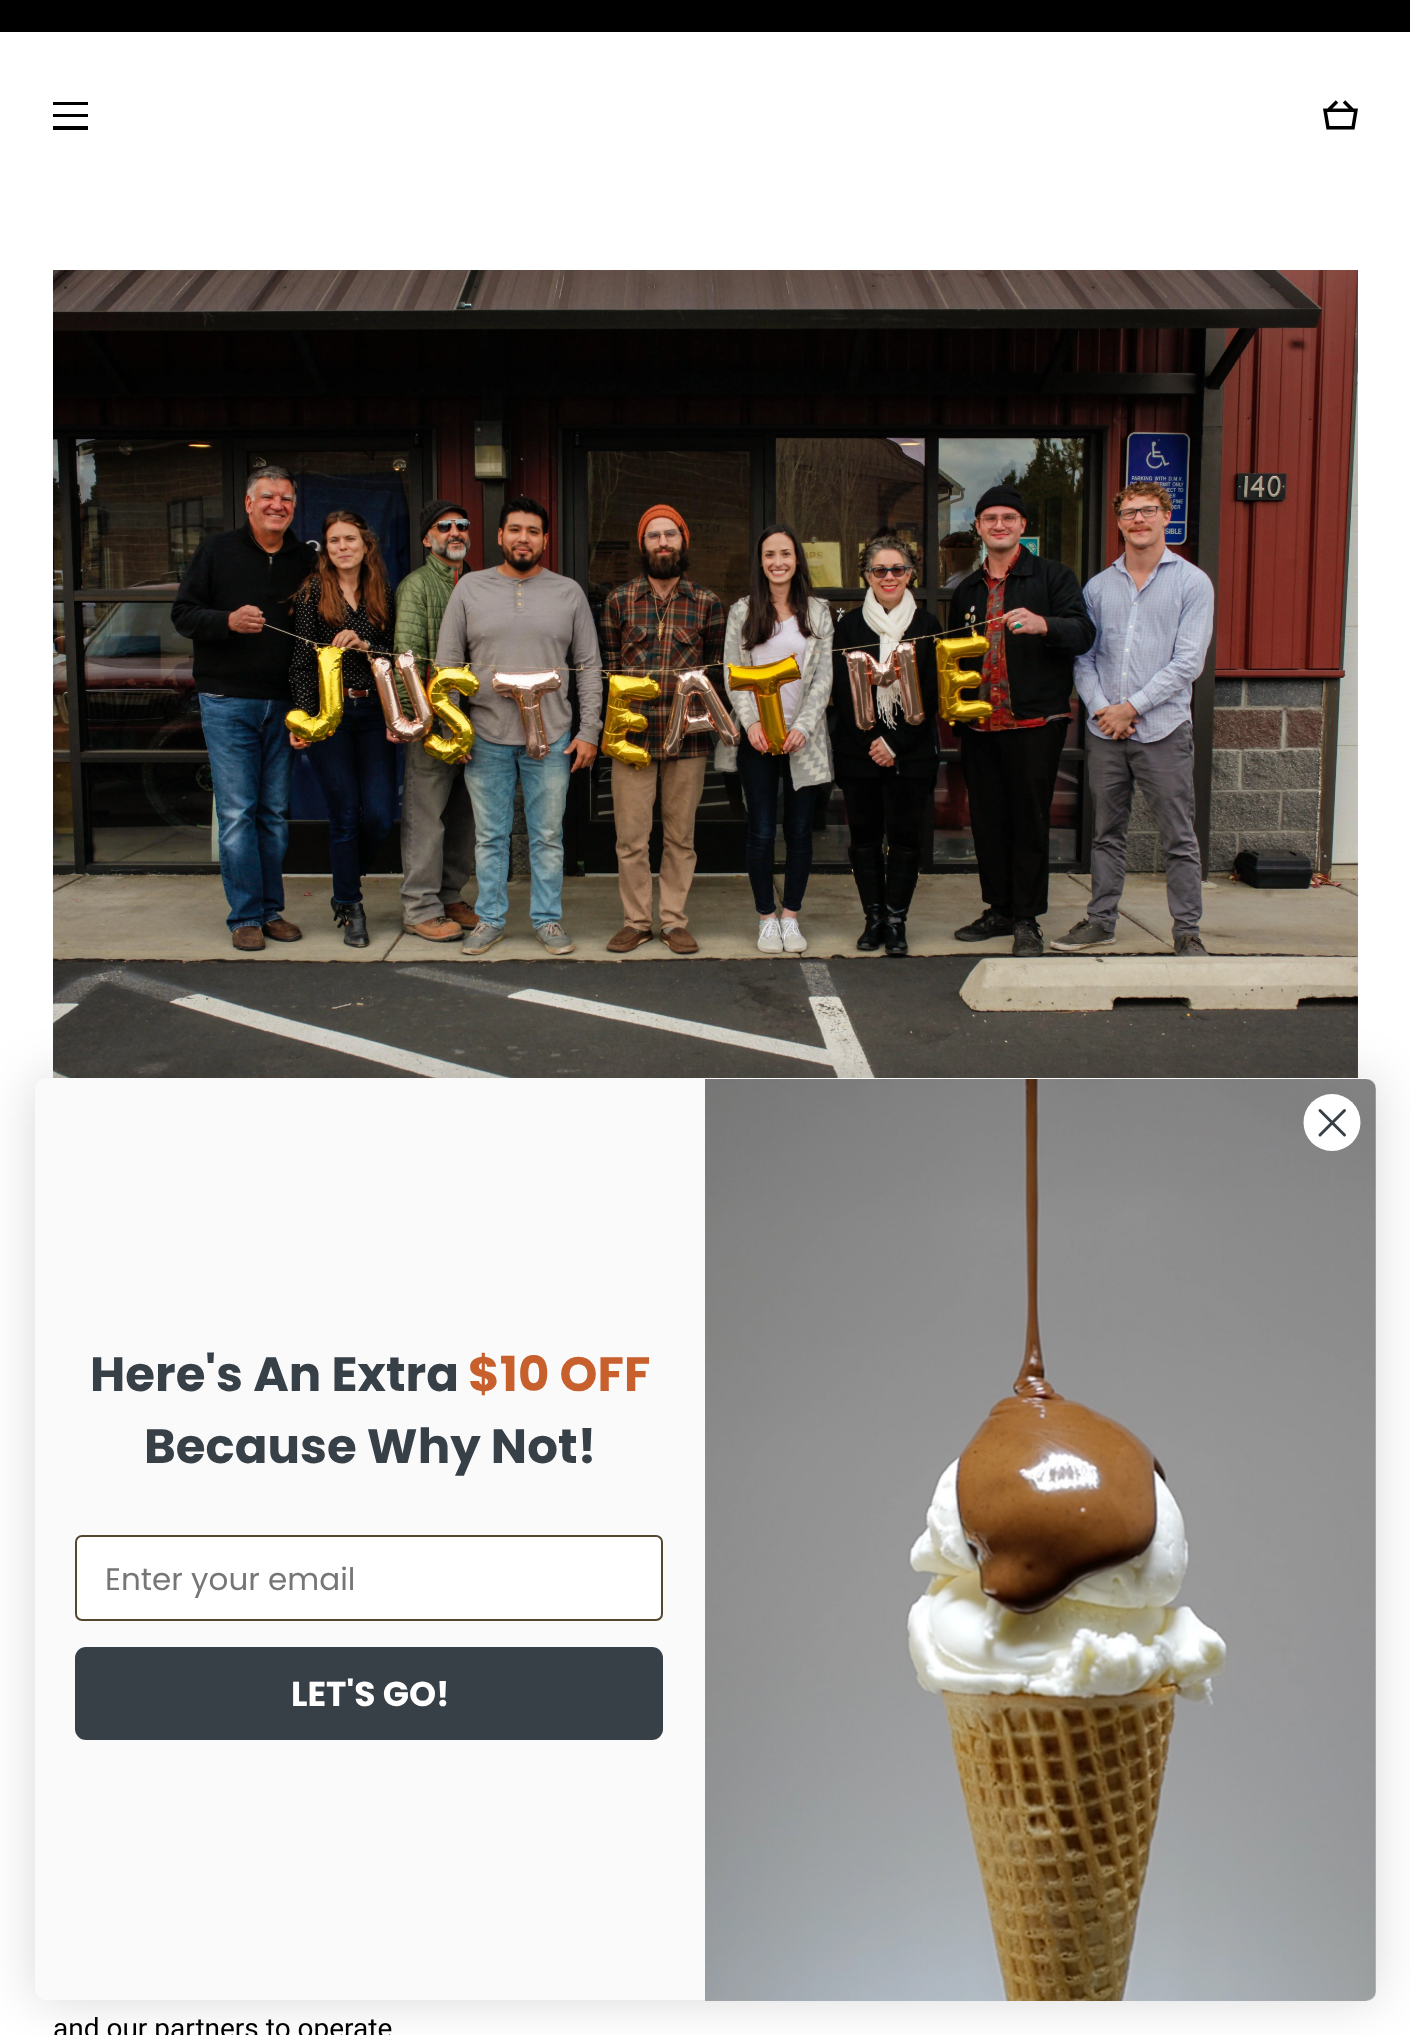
<!DOCTYPE html>
<meta charset="utf-8">
<style>body { margin: 0 } canvas { display: block }</style>
<canvas id="canvas" width="1410" height="2035"></canvas>
<script type="module">
  const canvas = document.getElementById("canvas");
  const ctx = canvas.getContext("2d");
  ctx.miterLimit = 4;
  ctx.fontKerning = "normal";
  async function loadImage(src) {
    const img = new Image();
    img.src = src;
    await img.decode();
    return img;
  }

  ctx.fillStyle = "#ffffff";
  ctx.fillRect(0, 0, 1410, 2035);
  ctx.fillStyle = "#000000";
  ctx.fillRect(0, 0, 1410, 32);
  ctx.fillRect(53, 102, 35, 3);
  ctx.fillRect(53, 114, 35, 3);
  ctx.fillRect(53, 126, 35, 4);
  ctx.drawImage(await loadImage("img1.png"), 1323, 100, 35, 30);
  ctx.drawImage(await loadImage("img3.png"), 53, 270, 1305, 808);
  ctx.fillStyle = "rgba(0, 0, 0, 0.15)";
  ctx.filter = "blur(26px)";
  ctx.beginPath();
  ctx.roundRect(35, 1078, 1341, 922, 11);
  ctx.fill();
  ctx.filter = "none";
  ctx.fillStyle = "#fafafa";
  ctx.beginPath();
  ctx.roundRect(35, 1078, 1341, 922, 11);
  ctx.fill();
  ctx.drawImage(await loadImage("img2.png"), 705, 1079, 671, 922);
  ctx.fillStyle = "#ffffff";
  ctx.beginPath();
  ctx.arc(1332, 1122.5, 28.5, 0, Math.PI * 2);
  ctx.fill();
  ctx.beginPath();
  ctx.moveTo(1320, 1110.5);
  ctx.lineTo(1344.5, 1135);
  ctx.moveTo(1320, 1135);
  ctx.lineTo(1344.5, 1110.5);
  ctx.closePath();
  ctx.strokeStyle = "#373f47";
  ctx.lineWidth = 3;
  ctx.lineCap = "round";
  ctx.lineJoin = "round";
  ctx.stroke();
  ctx.font = "bold 48.25px Poppins";
  ctx.fillStyle = "#373f47";
  ctx.fillText("Here's An Extra", 90, 1391);
  ctx.fillStyle = "#c8602d";
  ctx.fillText("$10 OFF", 468, 1391);
  ctx.fillStyle = "#373f47";
  ctx.fillText("Because Why Not!", 144, 1463);
  ctx.fillStyle = "#ffffff";
  ctx.beginPath();
  ctx.roundRect(76, 1536, 586, 84, 6);
  ctx.fill();
  ctx.strokeStyle = "#54462f";
  ctx.lineWidth = 2;
  ctx.lineJoin = "miter";
  ctx.stroke();
  ctx.font = "31px Poppins";
  ctx.fillStyle = "#767676";
  ctx.fillText("Enter your email", 105, 1590);
  ctx.fillStyle = "#373f47";
  ctx.beginPath();
  ctx.roundRect(75, 1647, 588, 93, 11);
  ctx.fill();
  ctx.font = "bold 34.5px Poppins";
  ctx.fillStyle = "#ffffff";
  ctx.fillText("LET'S GO!", 291, 1706);
  ctx.font = "28px Roboto";
  ctx.fillStyle = "#000000";
  ctx.fillText("and our partners to operate", 53, 2038);
</script>
